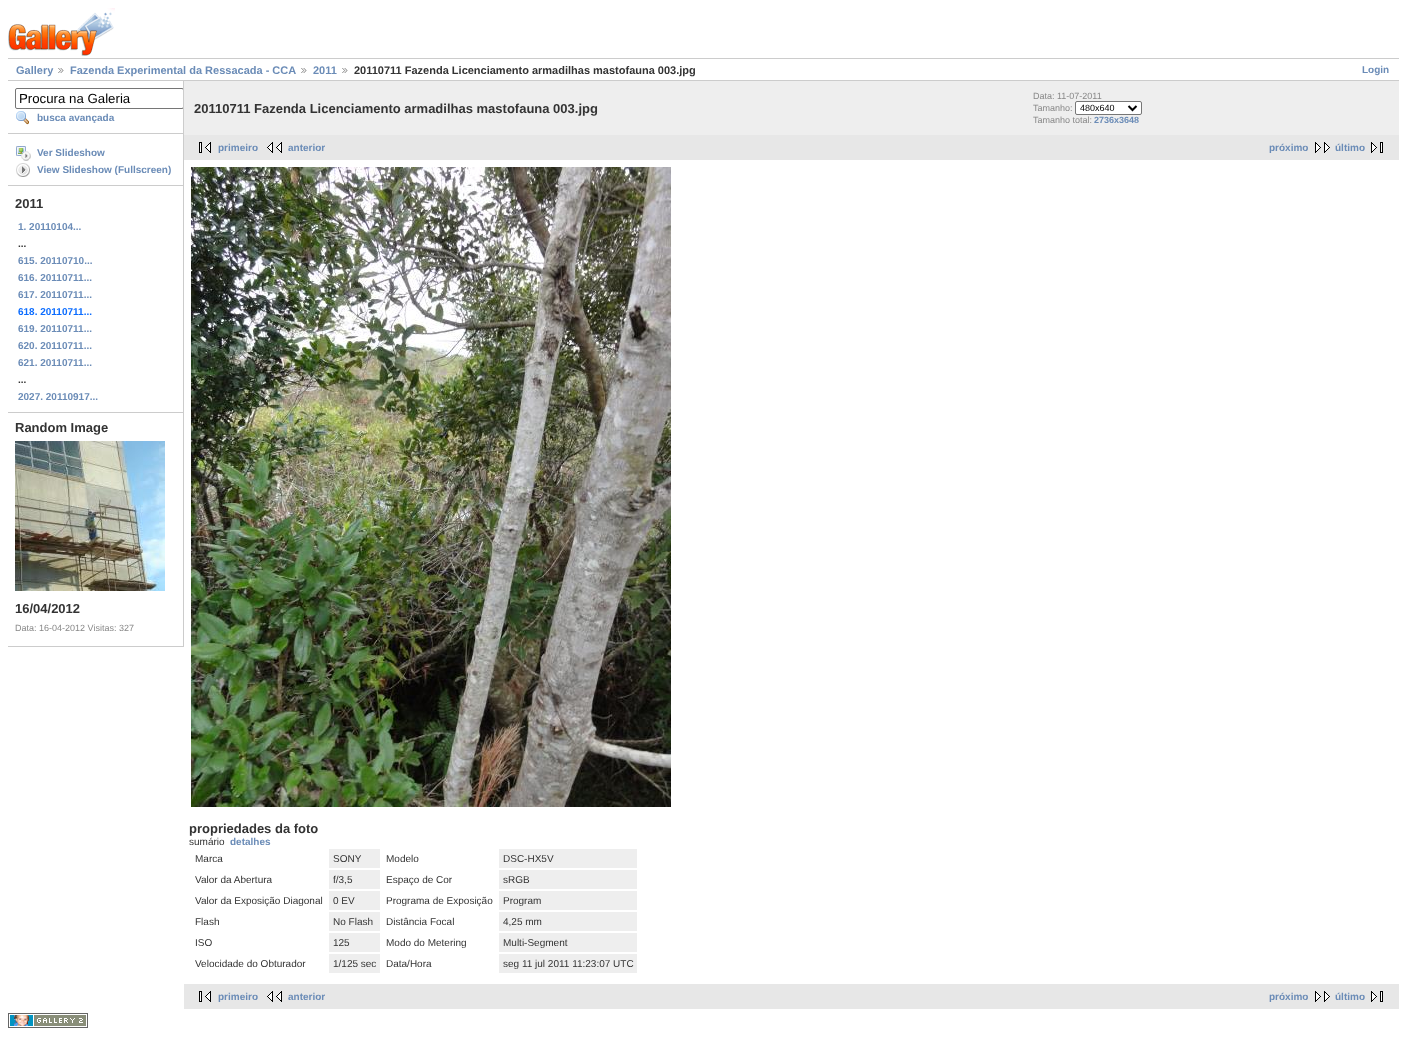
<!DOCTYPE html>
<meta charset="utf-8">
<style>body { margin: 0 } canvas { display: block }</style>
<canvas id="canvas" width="1407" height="1058"></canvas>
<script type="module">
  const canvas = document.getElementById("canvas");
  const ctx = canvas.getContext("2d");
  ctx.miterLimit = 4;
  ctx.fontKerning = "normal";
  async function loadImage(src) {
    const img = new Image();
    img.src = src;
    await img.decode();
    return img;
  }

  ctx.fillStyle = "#ffffff";
  ctx.fillRect(0, 0, 1407, 1058);
  ctx.drawImage(await loadImage("img1.png"), 8, 8, 107, 48);
  ctx.fillStyle = "#cccccc";
  ctx.fillRect(8, 58, 1391, 1);
  ctx.fillRect(8, 80, 1391, 1);
  ctx.font = "bold 11px Liberation Sans";
  ctx.fillStyle = "#6b8cb7";
  ctx.fillText("Gallery", 16, 74);
  ctx.drawImage(await loadImage("img2.png"), 58, 68, 6, 5);
  ctx.fillText("Fazenda Experimental da Ressacada - CCA", 70, 74);
  ctx.drawImage(await loadImage("img2.png"), 301, 68, 6, 5);
  ctx.fillText("2011", 313, 74);
  ctx.drawImage(await loadImage("img2.png"), 342, 68, 6, 5);
  ctx.fillStyle = "#333333";
  ctx.fillText("20110711 Fazenda Licenciamento armadilhas mastofauna 003.jpg", 354, 74);
  ctx.font = "bold 10px Liberation Sans";
  ctx.fillStyle = "#6b8cb7";
  ctx.fillText("Login", 1362, 73);
  ctx.fillStyle = "#cccccc";
  ctx.fillRect(183, 81, 1, 566);
  ctx.fillRect(8, 133, 175, 1);
  ctx.save();
  ctx.beginPath();
  ctx.rect(8, 81, 175, 566);
  ctx.clip();
  ctx.beginPath();
  ctx.roundRect(15.5, 88.5, 168, 20, 1.5);
  ctx.strokeStyle = "#767676";
  ctx.stroke();
  ctx.restore();
  ctx.font = "13.25px Liberation Sans";
  ctx.fillStyle = "#000000";
  ctx.fillText("Procura na Galeria", 19, 103);
  ctx.drawImage(await loadImage("img3.png"), 16, 111, 13, 14);
  ctx.font = "bold 10px Liberation Sans";
  ctx.fillStyle = "#6b8cb7";
  ctx.fillText("busca avançada", 37, 121);
  ctx.fillStyle = "#cccccc";
  ctx.fillRect(8, 185, 175, 1);
  ctx.drawImage(await loadImage("img4.png"), 16, 146, 15, 15);
  ctx.fillStyle = "#6b8cb7";
  ctx.fillText("Ver Slideshow", 37, 156);
  ctx.drawImage(await loadImage("img5.png"), 16, 163, 14, 14);
  ctx.fillText("View Slideshow (Fullscreen)", 37, 173);
  ctx.fillStyle = "#cccccc";
  ctx.fillRect(8, 412, 175, 1);
  ctx.font = "bold 13px Liberation Sans";
  ctx.fillStyle = "#333333";
  ctx.fillText("2011", 15, 208);
  ctx.font = "bold 10px Liberation Sans";
  ctx.fillStyle = "#6b8cb7";
  ctx.fillText("1. 20110104...", 18, 230);
  ctx.fillStyle = "#333333";
  ctx.fillText("...", 18, 247);
  ctx.fillStyle = "#6b8cb7";
  ctx.fillText("615. 20110710...", 18, 264);
  ctx.fillText("616. 20110711...", 18, 281);
  ctx.fillText("617. 20110711...", 18, 298);
  ctx.fillStyle = "#0b6cff";
  ctx.fillText("618. 20110711...", 18, 315);
  ctx.fillStyle = "#6b8cb7";
  ctx.fillText("619. 20110711...", 18, 332);
  ctx.fillText("620. 20110711...", 18, 349);
  ctx.fillText("621. 20110711...", 18, 366);
  ctx.fillStyle = "#333333";
  ctx.fillText("...", 18, 383);
  ctx.fillStyle = "#6b8cb7";
  ctx.fillText("2027. 20110917...", 18, 400);
  ctx.fillStyle = "#cccccc";
  ctx.fillRect(8, 646, 175, 1);
  ctx.font = "bold 13px Liberation Sans";
  ctx.fillStyle = "#333333";
  ctx.fillText("Random Image", 15, 432);
  ctx.drawImage(await loadImage("img6.png"), 15, 441, 150, 150);
  ctx.fillText("16/04/2012", 15, 613);
  ctx.font = "9px Liberation Sans";
  ctx.fillStyle = "#888888";
  ctx.fillText("Data: 16-04-2012 Visitas: 327", 15, 631);
  ctx.fillStyle = "#eeeeee";
  ctx.fillRect(184, 81, 1215, 54);
  ctx.font = "bold 13px Liberation Sans";
  ctx.fillStyle = "#333333";
  ctx.fillText("20110711 Fazenda Licenciamento armadilhas mastofauna 003.jpg", 194, 113);
  ctx.font = "9px Liberation Sans";
  ctx.fillStyle = "#888888";
  ctx.fillText("Data: 11-07-2011", 1033, 99);
  ctx.fillText("Tamanho:", 1033, 111);
  ctx.fillStyle = "#ffffff";
  ctx.beginPath();
  ctx.roundRect(1075.5, 101.5, 66, 13, 1.5);
  ctx.fill();
  ctx.strokeStyle = "#767676";
  ctx.stroke();
  ctx.beginPath();
  ctx.moveTo(1128.5, 106);
  ctx.lineTo(1132.5, 110);
  ctx.lineTo(1136.5, 106);
  ctx.strokeStyle = "#000000";
  ctx.lineWidth = 2;
  ctx.stroke();
  ctx.fillStyle = "#000000";
  ctx.fillText("480x640", 1080, 111);
  ctx.fillStyle = "#888888";
  ctx.fillText("Tamanho total:", 1033, 123);
  ctx.font = "bold 9px Liberation Sans";
  ctx.fillStyle = "#6b8cb7";
  ctx.fillText("2736x3648", 1094, 123);
  ctx.fillStyle = "#e7e7e7";
  ctx.fillRect(184, 135, 1215, 25);
  ctx.drawImage(await loadImage("img7.png"), 199, 142, 12, 11);
  ctx.font = "bold 10px Liberation Sans";
  ctx.fillStyle = "#6b8cb7";
  ctx.fillText("primeiro", 218, 151);
  ctx.drawImage(await loadImage("img8.png"), 267, 142, 15, 11);
  ctx.fillText("anterior", 288, 151);
  ctx.fillText("próximo", 1269, 151);
  ctx.drawImage(await loadImage("img9.png"), 1315, 142, 15, 11);
  ctx.fillText("último", 1335, 151);
  ctx.drawImage(await loadImage("img10.png"), 1371, 142, 12, 11);
  ctx.drawImage(await loadImage("img11.png"), 191, 167, 480, 640);
  ctx.font = "bold 13px Liberation Sans";
  ctx.fillStyle = "#333333";
  ctx.fillText("propriedades da foto", 189, 833);
  ctx.font = "10px Liberation Sans";
  ctx.fillText("sumário", 189, 845);
  ctx.font = "bold 10px Liberation Sans";
  ctx.fillStyle = "#6b8cb7";
  ctx.fillText("detalhes", 230, 845);
  ctx.font = "10px Liberation Sans";
  ctx.fillStyle = "#333333";
  ctx.fillText("Marca", 195, 862);
  ctx.fillStyle = "#eeeeee";
  ctx.fillRect(329, 849, 51, 19);
  ctx.fillStyle = "#333333";
  ctx.fillText("SONY", 333, 862);
  ctx.fillText("Modelo", 386, 862);
  ctx.fillStyle = "#eeeeee";
  ctx.fillRect(499, 849, 138, 19);
  ctx.fillStyle = "#333333";
  ctx.fillText("DSC-HX5V", 503, 862);
  ctx.fillText("Valor da Abertura", 195, 883);
  ctx.fillStyle = "#eeeeee";
  ctx.fillRect(329, 870, 51, 19);
  ctx.fillStyle = "#333333";
  ctx.fillText("f/3,5", 333, 883);
  ctx.fillText("Espaço de Cor", 386, 883);
  ctx.fillStyle = "#eeeeee";
  ctx.fillRect(499, 870, 138, 19);
  ctx.fillStyle = "#333333";
  ctx.fillText("sRGB", 503, 883);
  ctx.fillText("Valor da Exposição Diagonal", 195, 904);
  ctx.fillStyle = "#eeeeee";
  ctx.fillRect(329, 891, 51, 19);
  ctx.fillStyle = "#333333";
  ctx.fillText("0 EV", 333, 904);
  ctx.fillText("Programa de Exposição", 386, 904);
  ctx.fillStyle = "#eeeeee";
  ctx.fillRect(499, 891, 138, 19);
  ctx.fillStyle = "#333333";
  ctx.fillText("Program", 503, 904);
  ctx.fillText("Flash", 195, 925);
  ctx.fillStyle = "#eeeeee";
  ctx.fillRect(329, 912, 51, 19);
  ctx.fillStyle = "#333333";
  ctx.fillText("No Flash", 333, 925);
  ctx.fillText("Distância Focal", 386, 925);
  ctx.fillStyle = "#eeeeee";
  ctx.fillRect(499, 912, 138, 19);
  ctx.fillStyle = "#333333";
  ctx.fillText("4,25 mm", 503, 925);
  ctx.fillText("ISO", 195, 946);
  ctx.fillStyle = "#eeeeee";
  ctx.fillRect(329, 933, 51, 19);
  ctx.fillStyle = "#333333";
  ctx.fillText("125", 333, 946);
  ctx.fillText("Modo do Metering", 386, 946);
  ctx.fillStyle = "#eeeeee";
  ctx.fillRect(499, 933, 138, 19);
  ctx.fillStyle = "#333333";
  ctx.fillText("Multi-Segment", 503, 946);
  ctx.fillText("Velocidade do Obturador", 195, 967);
  ctx.fillStyle = "#eeeeee";
  ctx.fillRect(329, 954, 51, 19);
  ctx.fillStyle = "#333333";
  ctx.fillText("1/125 sec", 333, 967);
  ctx.fillText("Data/Hora", 386, 967);
  ctx.fillStyle = "#eeeeee";
  ctx.fillRect(499, 954, 138, 19);
  ctx.fillStyle = "#333333";
  ctx.fillText("seg 11 jul 2011 11:23:07 UTC", 503, 967);
  ctx.fillStyle = "#e7e7e7";
  ctx.fillRect(184, 984, 1215, 25);
  ctx.drawImage(await loadImage("img7.png"), 199, 991, 12, 11);
  ctx.font = "bold 10px Liberation Sans";
  ctx.fillStyle = "#6b8cb7";
  ctx.fillText("primeiro", 218, 1000);
  ctx.drawImage(await loadImage("img8.png"), 267, 991, 15, 11);
  ctx.fillText("anterior", 288, 1000);
  ctx.fillText("próximo", 1269, 1000);
  ctx.drawImage(await loadImage("img9.png"), 1315, 991, 15, 11);
  ctx.fillText("último", 1335, 1000);
  ctx.drawImage(await loadImage("img10.png"), 1371, 991, 12, 11);
  ctx.drawImage(await loadImage("img12.png"), 8, 1013, 80, 15);
</script>
